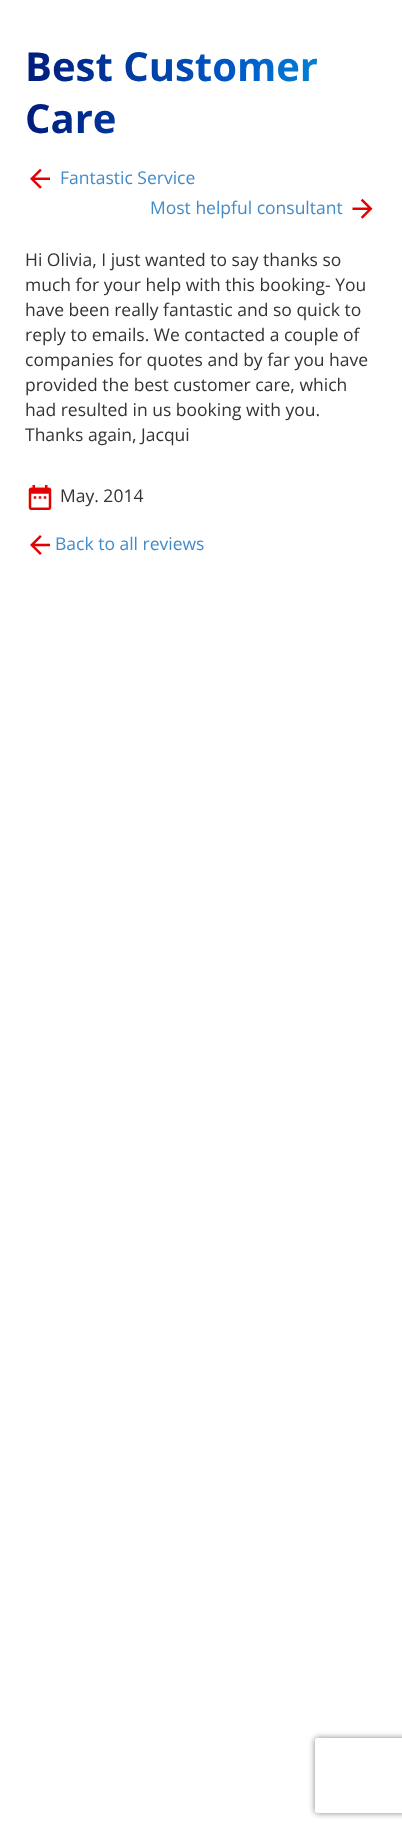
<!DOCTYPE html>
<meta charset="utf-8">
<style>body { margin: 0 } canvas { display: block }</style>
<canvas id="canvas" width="402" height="1829"></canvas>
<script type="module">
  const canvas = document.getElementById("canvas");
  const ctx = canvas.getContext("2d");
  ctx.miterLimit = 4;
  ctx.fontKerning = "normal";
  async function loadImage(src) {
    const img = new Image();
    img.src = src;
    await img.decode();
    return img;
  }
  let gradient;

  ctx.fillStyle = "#ffffff";
  ctx.fillRect(0, 0, 402, 1829);
  ctx.font = "bold 40px Open Sans";
  gradient = ctx.createLinearGradient(25, 92, 378, 92);
  gradient.addColorStop(0, "#001c7b");
  gradient.addColorStop(0.6, "#005ac8");
  gradient.addColorStop(1, "#009fdf");
  ctx.fillStyle = gradient;
  ctx.fillText("Best Customer", 25, 81);
  ctx.fillText("Care", 25, 133);
  ctx.drawImage(await loadImage("img1.png"), 30, 168, 20, 21);
  ctx.font = "17.5px Open Sans";
  ctx.fillStyle = "#428bca";
  ctx.fillText("Fantastic Service", 60, 184);
  ctx.fillText("Most helpful consultant", 150, 214);
  ctx.drawImage(await loadImage("img2.png"), 352, 198, 21, 21);
  ctx.fillStyle = "#333333";
  ctx.fillText("Hi Olivia, I just wanted to say thanks so", 25, 266);
  ctx.fillText("much for your help with this booking- You", 25, 291);
  ctx.fillText("have been really fantastic and so quick to", 25, 316);
  ctx.fillText("reply to emails. We contacted a couple of", 25, 341);
  ctx.fillText("companies for quotes and by far you have", 25, 366);
  ctx.fillText("provided the best customer care, which", 25, 391);
  ctx.fillText("had resulted in us booking with you.", 25, 416);
  ctx.fillText("Thanks again, Jacqui", 25, 441);
  ctx.drawImage(await loadImage("img3.png"), 28, 485, 24, 25);
  ctx.fillText("May. 2014", 60, 502);
  ctx.drawImage(await loadImage("img4.png"), 30, 535, 20, 20);
  ctx.fillStyle = "#428bca";
  ctx.fillText("Back to all reviews", 55, 550);
  ctx.save();
  ctx.beginPath();
  ctx.moveTo(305, 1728);
  ctx.lineTo(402, 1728);
  ctx.lineTo(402, 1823);
  ctx.lineTo(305, 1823);
  ctx.closePath();
  ctx.moveTo(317.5, 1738);
  ctx.lineTo(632.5, 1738);
  ctx.bezierCurveTo(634, 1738, 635, 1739, 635, 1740.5);
  ctx.lineTo(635, 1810.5);
  ctx.bezierCurveTo(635, 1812, 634, 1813, 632.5, 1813);
  ctx.lineTo(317.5, 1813);
  ctx.bezierCurveTo(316, 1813, 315, 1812, 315, 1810.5);
  ctx.lineTo(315, 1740.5);
  ctx.bezierCurveTo(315, 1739, 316, 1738, 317.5, 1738);
  ctx.closePath();
  ctx.clip("evenodd");
  ctx.fillStyle = "#808080";
  ctx.filter = "blur(3px)";
  ctx.beginPath();
  ctx.roundRect(315, 1738, 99, 75, 2.5);
  ctx.fill();
  ctx.filter = "none";
  ctx.restore();
</script>
